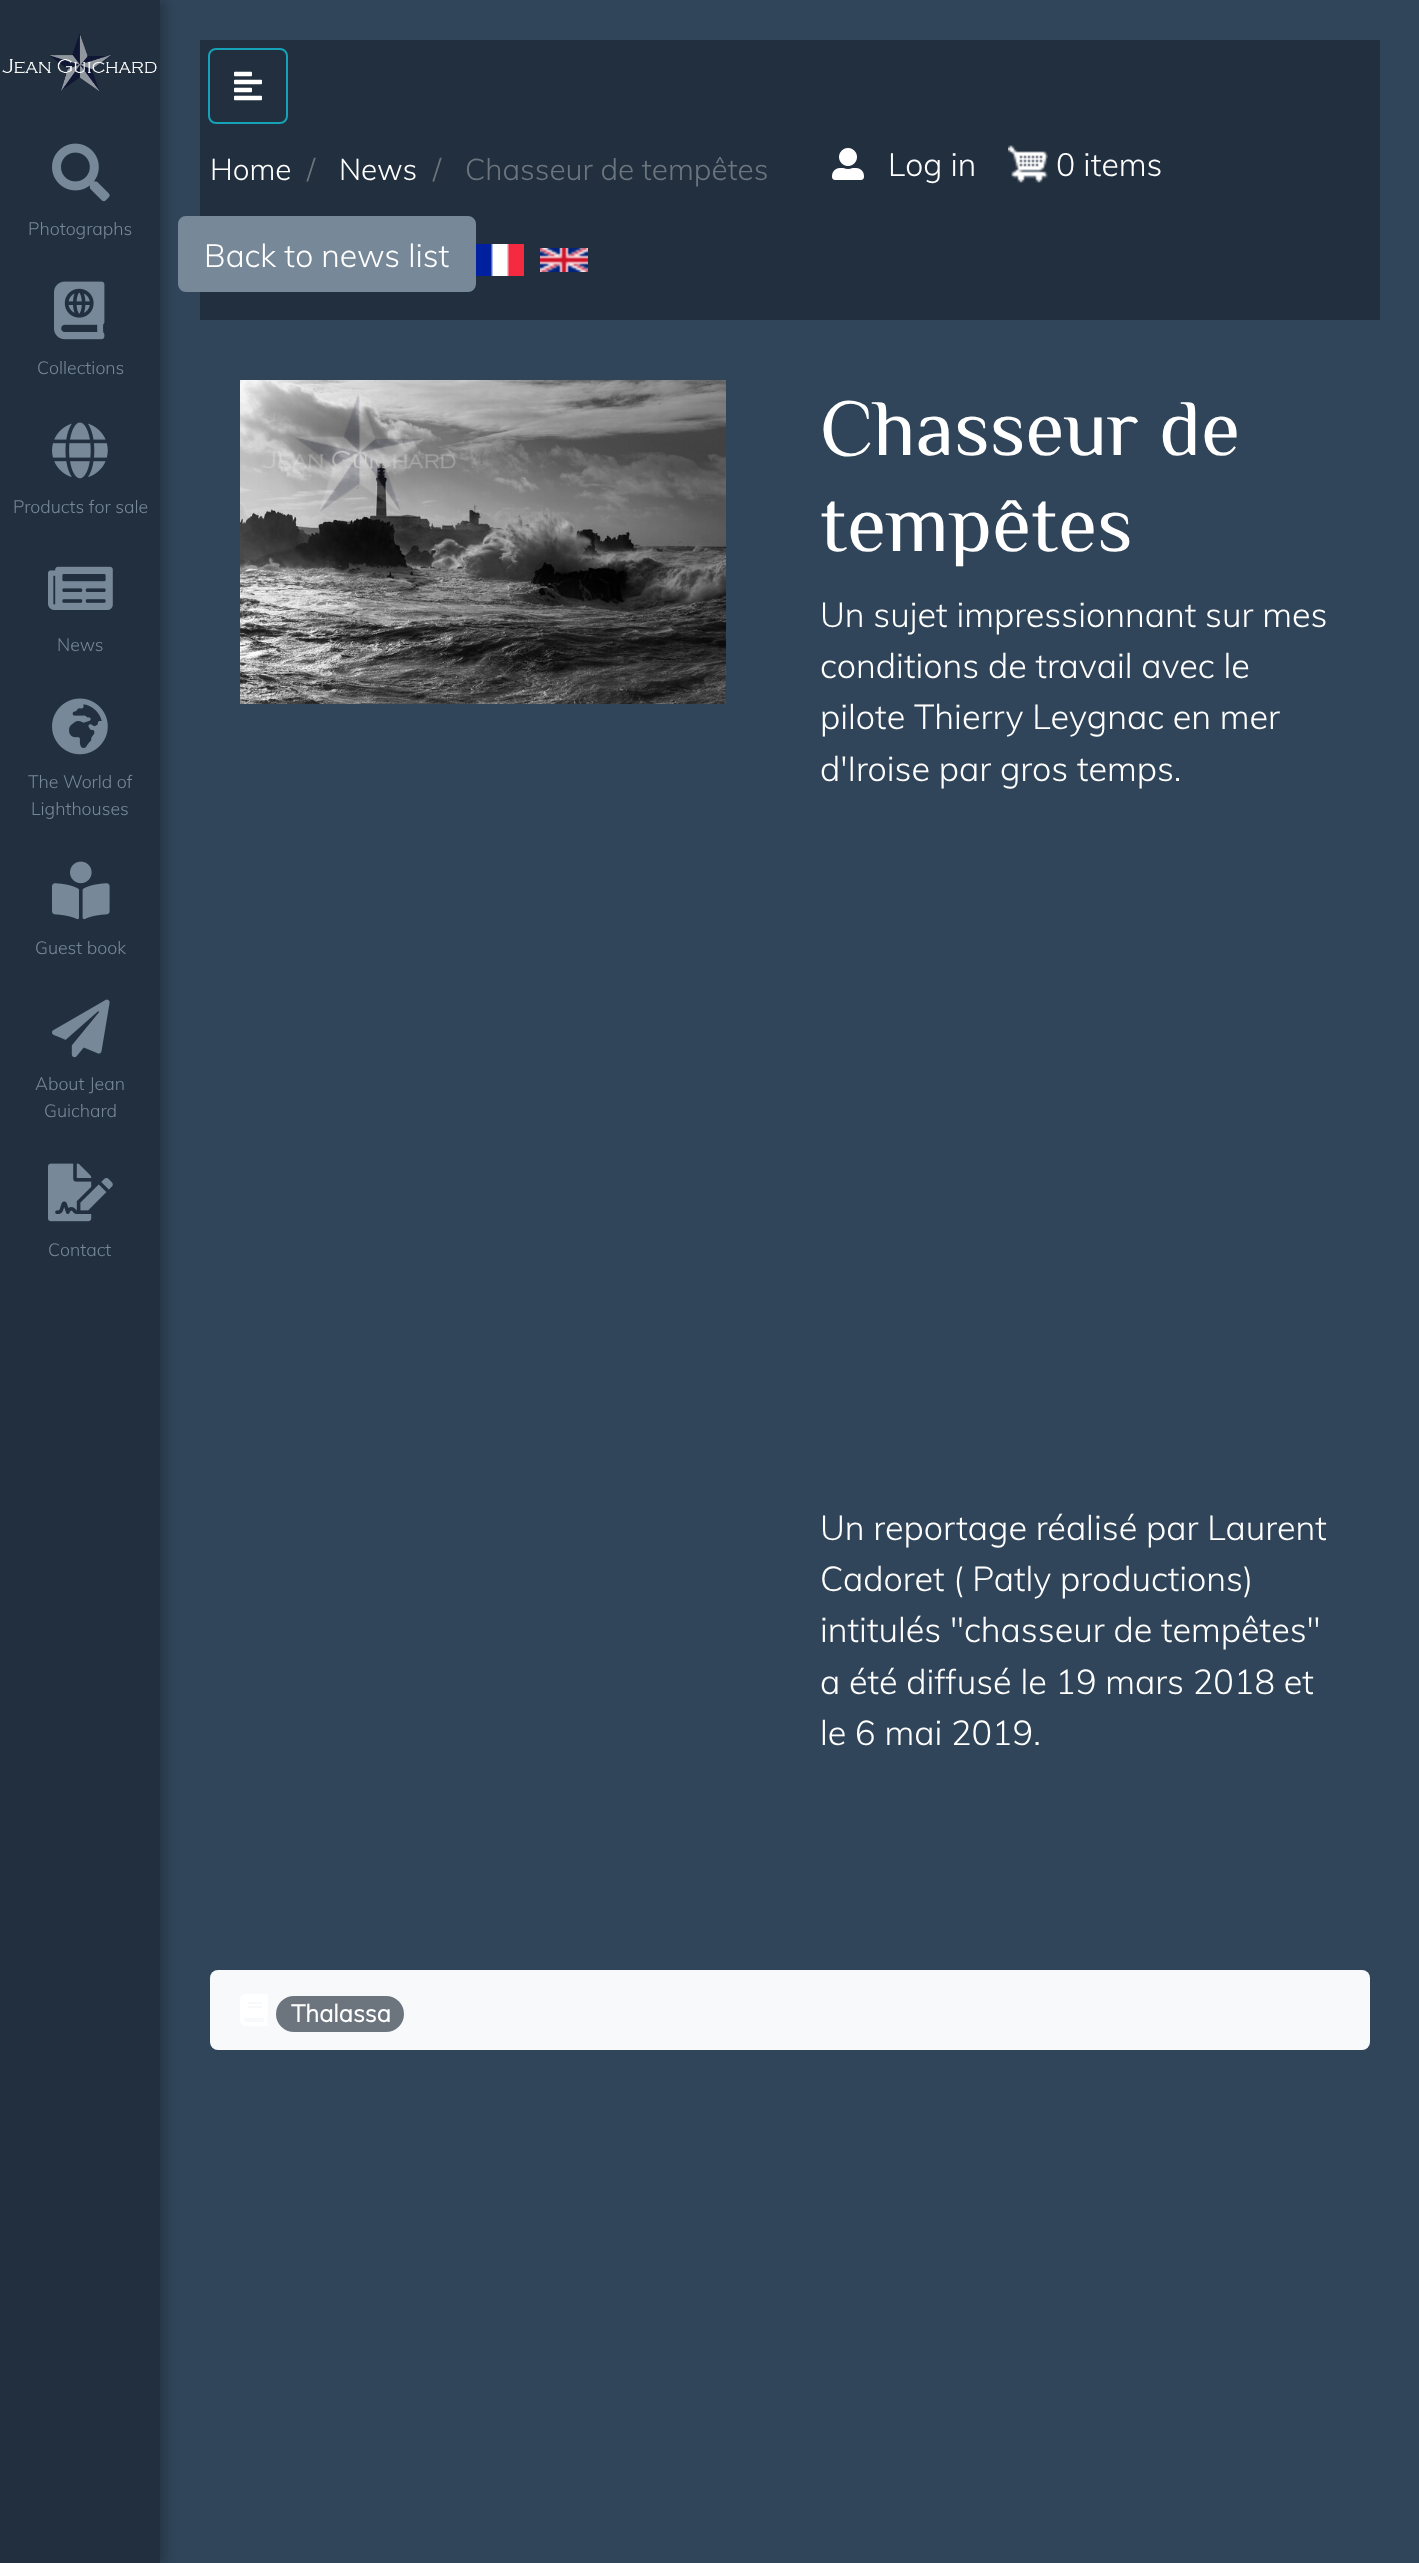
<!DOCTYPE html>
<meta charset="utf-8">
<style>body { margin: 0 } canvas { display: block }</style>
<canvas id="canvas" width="1419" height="2563"></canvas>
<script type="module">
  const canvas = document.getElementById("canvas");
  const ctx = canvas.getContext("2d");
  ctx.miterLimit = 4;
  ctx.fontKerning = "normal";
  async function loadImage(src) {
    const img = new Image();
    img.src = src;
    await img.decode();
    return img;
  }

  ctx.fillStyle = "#304559";
  ctx.fillRect(0, 0, 1419, 2563);
  ctx.fillStyle = "rgba(0, 0, 0, 0.2)";
  ctx.filter = "blur(4px)";
  ctx.beginPath();
  ctx.rect(10, 2, 156, 2560);
  ctx.fill();
  ctx.filter = "none";
  ctx.fillStyle = "#212f3e";
  ctx.fillRect(0, 0, 160, 2563);
  ctx.drawImage(await loadImage("img1.png"), 2, 34, 155, 58);
  ctx.drawImage(await loadImage("img2.png"), 52, 143, 58, 59);
  ctx.font = "300 17.75px Muli";
  ctx.fillStyle = "#778899";
  ctx.fillText("Photographs", 28, 235);
  ctx.drawImage(await loadImage("img3.png"), 54, 281, 51, 59);
  ctx.fillText("Collections", 37, 374);
  ctx.drawImage(await loadImage("img4.png"), 52, 422, 56, 57);
  ctx.fillText("Products for sale", 13, 513);
  ctx.drawImage(await loadImage("img5.png"), 48, 566, 65, 44);
  ctx.fillText("News", 57, 651);
  ctx.drawImage(await loadImage("img6.png"), 52, 698, 56, 57);
  ctx.fillText("The World of", 28, 788);
  ctx.fillText("Lighthouses", 31, 815);
  ctx.drawImage(await loadImage("img7.png"), 52, 861, 58, 59);
  ctx.fillText("Guest book", 35, 954);
  ctx.drawImage(await loadImage("img8.png"), 52, 999, 58, 59);
  ctx.fillText("About Jean", 35, 1090);
  ctx.fillText("Guichard", 44, 1117);
  ctx.drawImage(await loadImage("img9.png"), 48, 1163, 65, 59);
  ctx.fillText("Contact", 48, 1256);
  ctx.fillStyle = "#212f3e";
  ctx.fillRect(200, 40, 1180, 280);
  ctx.beginPath();
  ctx.roundRect(209, 49, 78, 74, 7);
  ctx.strokeStyle = "#17a2b8";
  ctx.lineWidth = 2;
  ctx.stroke();
  ctx.drawImage(await loadImage("img10.png"), 234, 71, 28, 30);
  ctx.font = "300 29.75px Muli";
  ctx.fillStyle = "#ffffff";
  ctx.fillText("Home", 210, 180);
  ctx.fillStyle = "#6c757d";
  ctx.fillText("/", 307, 180);
  ctx.fillStyle = "#ffffff";
  ctx.fillText("News", 339, 180);
  ctx.fillStyle = "#6c757d";
  ctx.fillText("/", 433, 180);
  ctx.fillText("Chasseur de tempêtes", 465, 180);
  ctx.drawImage(await loadImage("img11.png"), 832, 148, 32, 32);
  ctx.font = "300 32px Muli";
  ctx.fillStyle = "#ffffff";
  ctx.fillText("Log in", 888, 176);
  ctx.drawImage(await loadImage("img12.png"), 1008, 145, 40, 38);
  ctx.fillText("0 items", 1056, 176);
  ctx.fillStyle = "#778899";
  ctx.beginPath();
  ctx.roundRect(179, 217, 296, 74, 7);
  ctx.fill();
  ctx.strokeStyle = "#778899";
  ctx.stroke();
  ctx.fillStyle = "#ffffff";
  ctx.fillText("Back to news list", 204, 267);
  ctx.drawImage(await loadImage("img13.png"), 476, 244, 48, 32);
  ctx.drawImage(await loadImage("img14.png"), 540, 248, 48, 24);
  ctx.drawImage(await loadImage("img15.png"), 240, 380, 486, 324);
  ctx.font = "80px Philosopher";
  ctx.fillText("Chasseur de", 820, 455);
  ctx.fillText("tempêtes", 820, 551);
  ctx.font = "300 34.25px Muli";
  ctx.fillText("Un sujet impressionnant sur mes", 820, 627);
  ctx.fillText("conditions de travail avec le", 820, 678);
  ctx.fillText("pilote Thierry Leygnac en mer", 820, 729);
  ctx.fillText("d'Iroise par gros temps.", 820, 781);
  ctx.fillText("Un reportage réalisé par Laurent", 820, 1540);
  ctx.fillText("Cadoret ( Patly productions)", 820, 1591);
  ctx.fillText("intitulés \"chasseur de tempêtes\"", 820, 1642);
  ctx.fillText("a été diffusé le 19 mars 2018 et", 820, 1694);
  ctx.fillText("le 6 mai 2019.", 820, 1745);
  ctx.fillStyle = "#f8f9fa";
  ctx.beginPath();
  ctx.roundRect(210, 1970, 1160, 80, 8);
  ctx.fill();
  ctx.drawImage(await loadImage("img16.png"), 240, 1994, 28, 32);
  ctx.fillStyle = "#6c757d";
  ctx.beginPath();
  ctx.roundRect(276, 1996, 128, 36, 18);
  ctx.fill();
  ctx.font = "bold 24px Muli";
  ctx.fillStyle = "#ffffff";
  ctx.fillText("Thalassa", 291, 2022);
</script>
